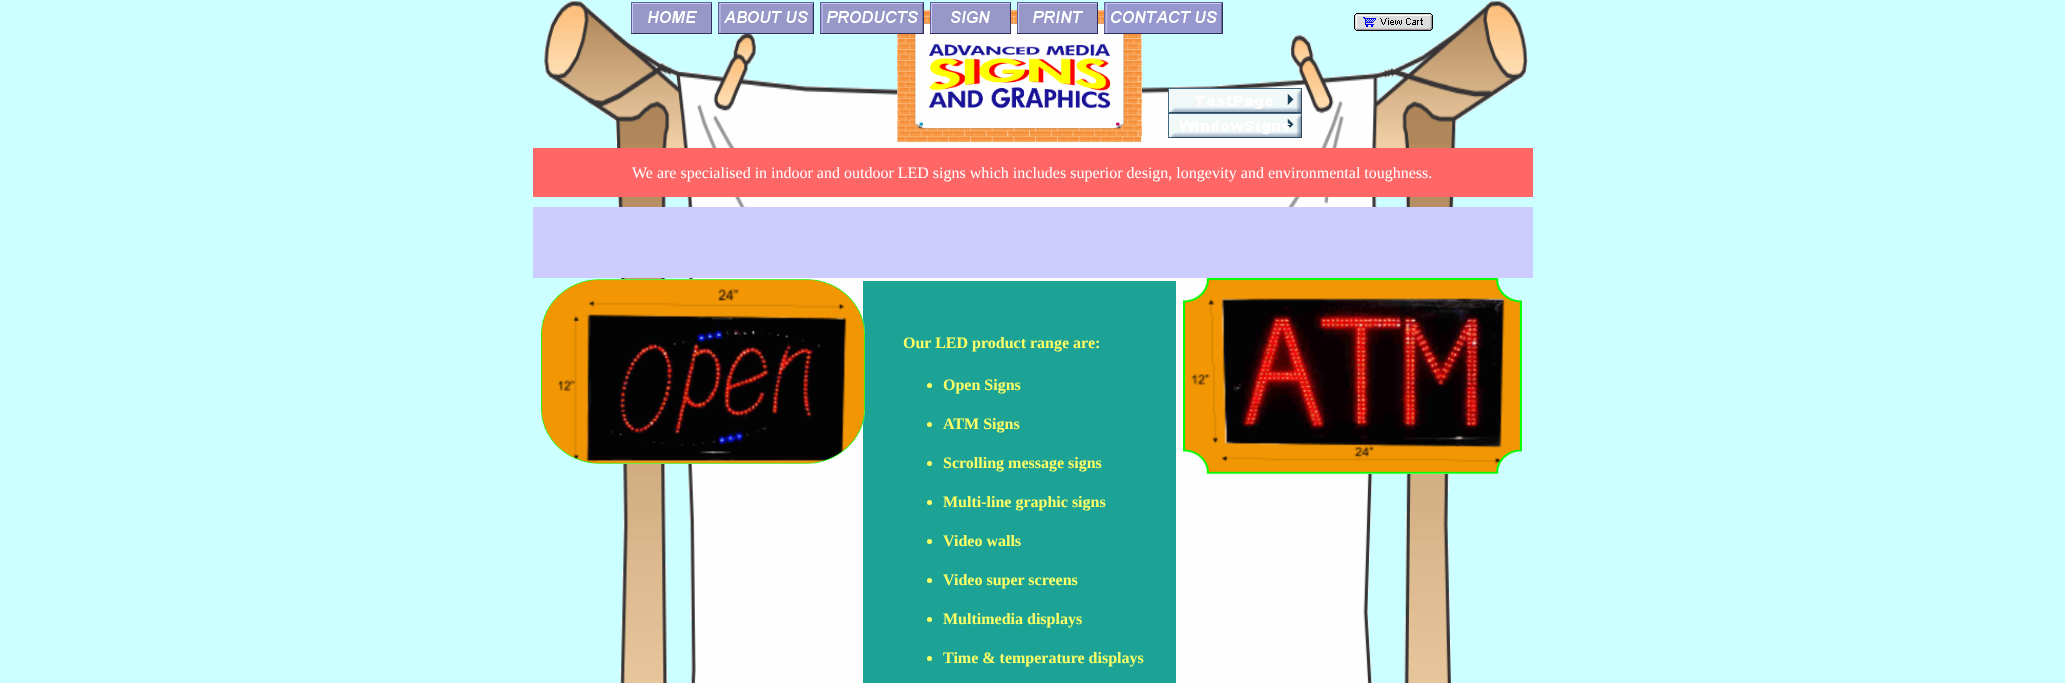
<!DOCTYPE html>
<meta charset="utf-8">
<style>body { margin: 0 } canvas { display: block }</style>
<canvas id="canvas" width="2065" height="683"></canvas>
<script type="module">
  const canvas = document.getElementById("canvas");
  const ctx = canvas.getContext("2d");
  ctx.miterLimit = 4;
  ctx.fontKerning = "normal";
  async function loadImage(src) {
    const img = new Image();
    img.src = src;
    await img.decode();
    return img;
  }

  ctx.fillStyle = "#ccffff";
  ctx.fillRect(0, 0, 2065, 683);
  ctx.drawImage(await loadImage("img1.png"), 544, 0, 984, 683);
  ctx.drawImage(await loadImage("img2.png"), 631, 2, 81, 32);
  ctx.drawImage(await loadImage("img3.png"), 718, 2, 96, 32);
  ctx.drawImage(await loadImage("img8.png"), 897, 10, 245, 132);
  ctx.drawImage(await loadImage("img4.png"), 820, 2, 104, 32);
  ctx.drawImage(await loadImage("img5.png"), 930, 2, 81, 32);
  ctx.drawImage(await loadImage("img6.png"), 1017, 2, 81, 32);
  ctx.drawImage(await loadImage("img7.png"), 1104, 2, 119, 32);
  ctx.drawImage(await loadImage("img9.png"), 1354, 13, 79, 18);
  ctx.drawImage(await loadImage("img10.png"), 1168, 88, 134, 25);
  ctx.drawImage(await loadImage("img11.png"), 1168, 113, 134, 25);
  ctx.fillStyle = "#ff6666";
  ctx.fillRect(533, 148, 1000, 49);
  ctx.font = "16px Liberation Serif";
  ctx.fillStyle = "#ffffff";
  ctx.fillText("We are specialised in indoor and outdoor LED signs which includes superior design, longevity and environmental toughness.", 632, 178);
  ctx.fillStyle = "#ccccff";
  ctx.fillRect(533, 207, 1000, 71);
  ctx.fillStyle = "#1ca395";
  ctx.fillRect(863, 281, 313, 402);
  ctx.drawImage(await loadImage("img12.png"), 541, 279, 324, 185);
  ctx.font = "bold 16px Liberation Serif";
  ctx.fillStyle = "#ffff66";
  ctx.fillText("Our LED product range are:", 903, 348);
  ctx.beginPath();
  ctx.arc(929.5, 385.5, 2.5, 0, Math.PI * 2);
  ctx.fill();
  ctx.fillText("Open Signs", 943, 390);
  ctx.beginPath();
  ctx.arc(929.5, 424.5, 2.5, 0, Math.PI * 2);
  ctx.fill();
  ctx.fillText("ATM Signs", 943, 429);
  ctx.beginPath();
  ctx.arc(929.5, 463.5, 2.5, 0, Math.PI * 2);
  ctx.fill();
  ctx.fillText("Scrolling message signs", 943, 468);
  ctx.beginPath();
  ctx.arc(929.5, 502.5, 2.5, 0, Math.PI * 2);
  ctx.fill();
  ctx.fillText("Multi-line graphic signs", 943, 507);
  ctx.beginPath();
  ctx.arc(929.5, 541.5, 2.5, 0, Math.PI * 2);
  ctx.fill();
  ctx.fillText("Video walls", 943, 546);
  ctx.beginPath();
  ctx.arc(929.5, 580.5, 2.5, 0, Math.PI * 2);
  ctx.fill();
  ctx.fillText("Video super screens", 943, 585);
  ctx.beginPath();
  ctx.arc(929.5, 619.5, 2.5, 0, Math.PI * 2);
  ctx.fill();
  ctx.fillText("Multimedia displays", 943, 624);
  ctx.beginPath();
  ctx.arc(929.5, 658.5, 2.5, 0, Math.PI * 2);
  ctx.fill();
  ctx.fillText("Time & temperature displays", 943, 663);
  ctx.drawImage(await loadImage("img13.png"), 1183, 278, 339, 196);
</script>
